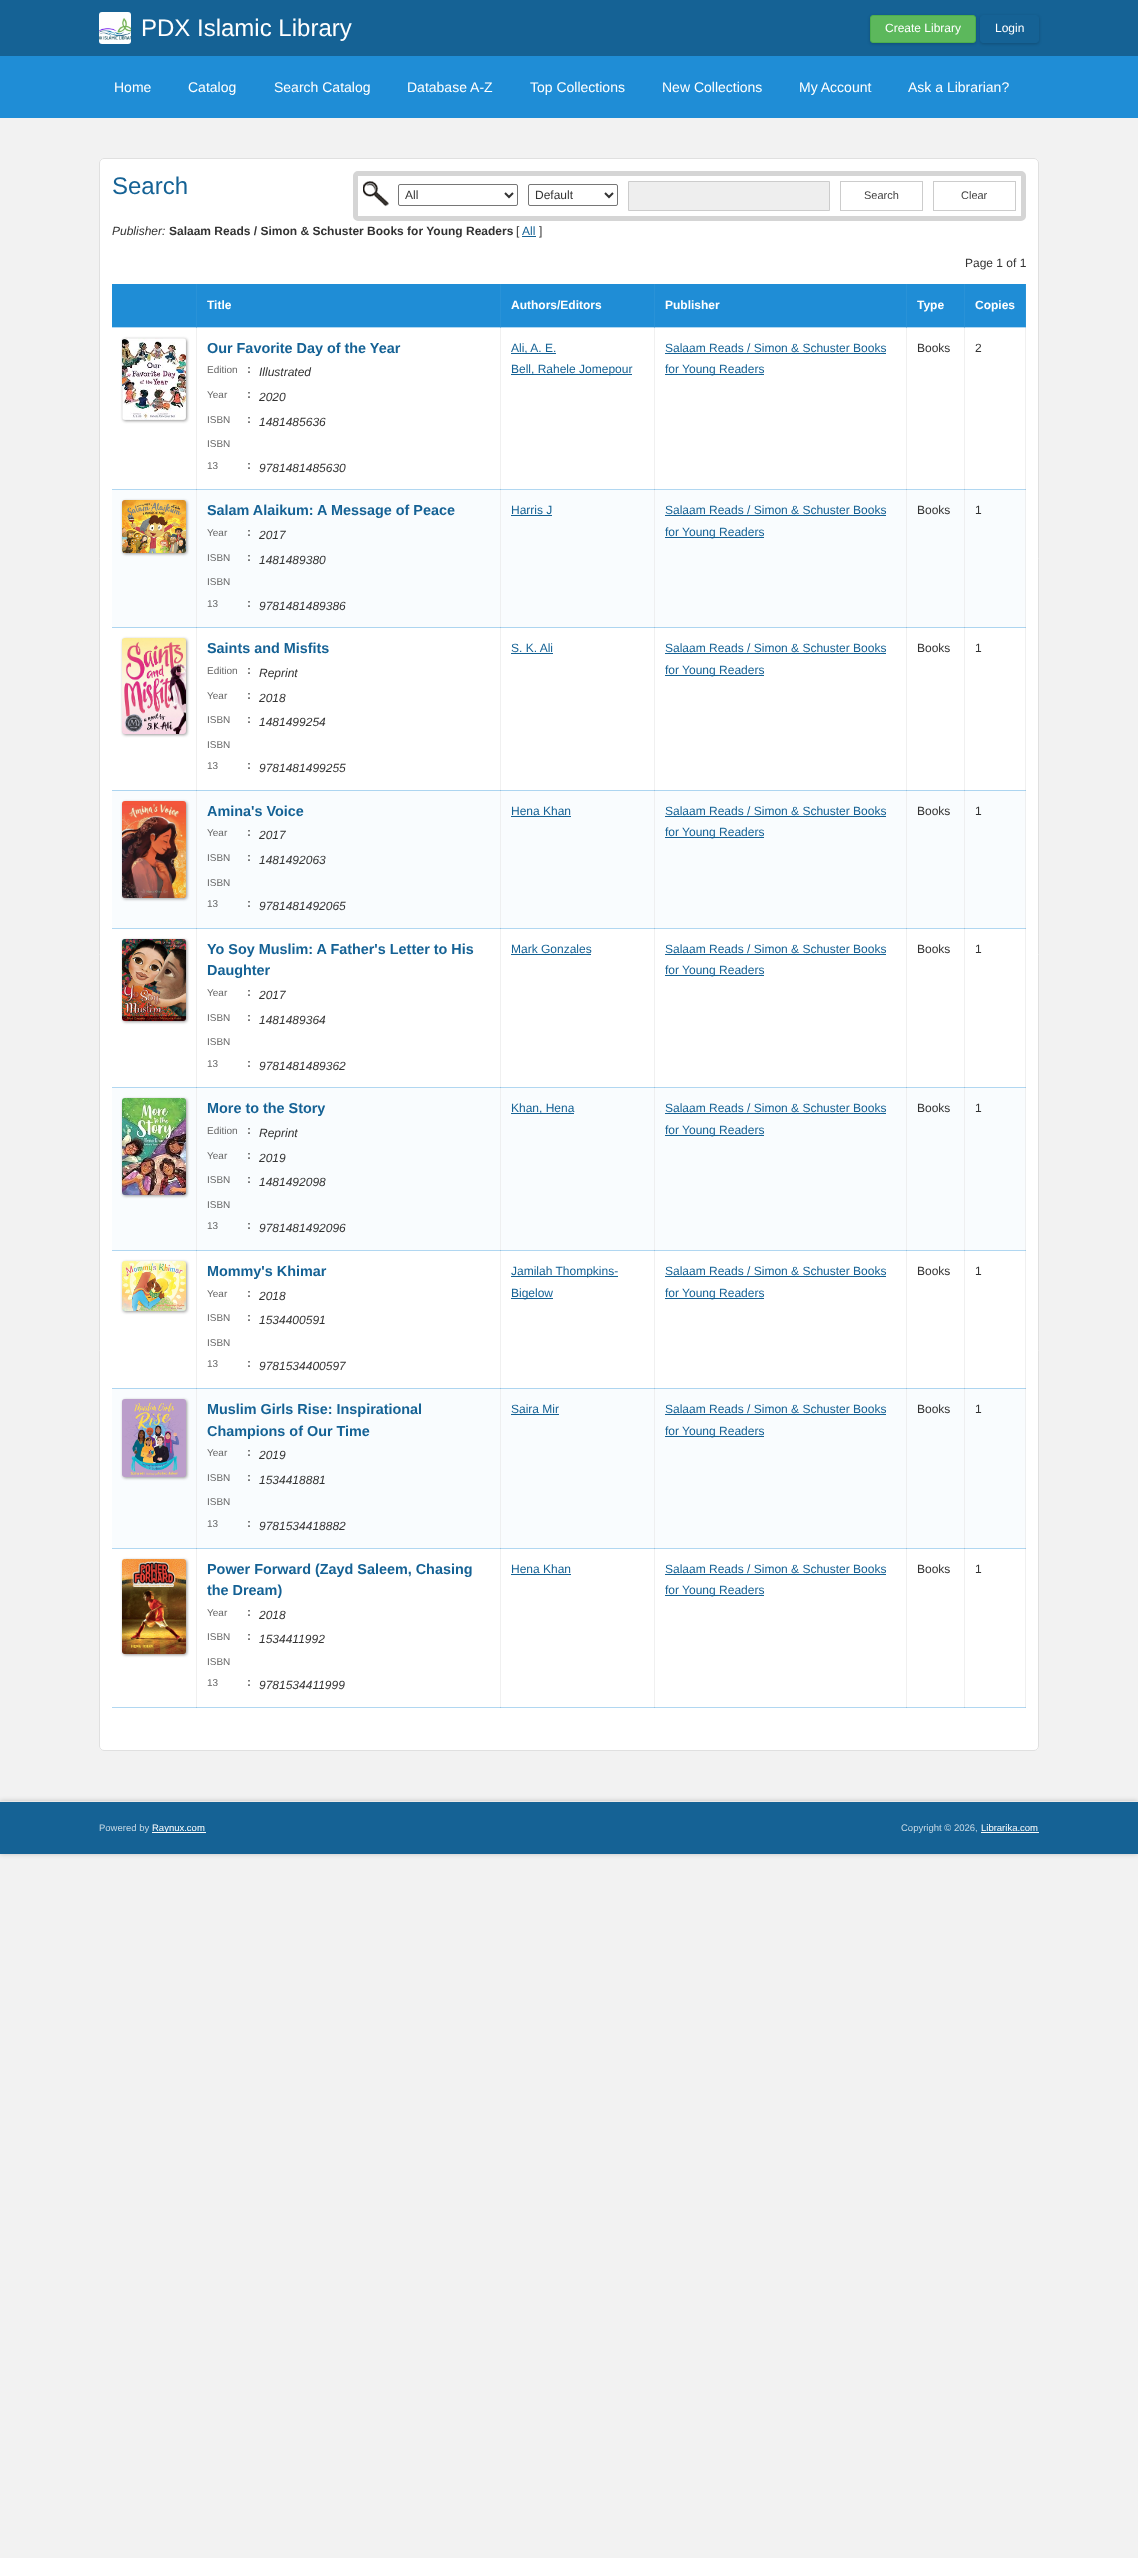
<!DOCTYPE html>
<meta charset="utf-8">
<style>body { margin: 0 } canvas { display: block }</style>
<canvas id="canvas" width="1138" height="2558"></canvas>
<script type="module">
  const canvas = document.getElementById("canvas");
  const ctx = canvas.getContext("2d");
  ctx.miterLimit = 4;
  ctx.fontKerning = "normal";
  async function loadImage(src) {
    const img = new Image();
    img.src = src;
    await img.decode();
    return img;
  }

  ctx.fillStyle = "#f2f2f2";
  ctx.fillRect(0, 0, 1138, 2558);
  ctx.fillStyle = "#156295";
  ctx.fillRect(0, 0, 1138, 56);
  ctx.drawImage(await loadImage("img1.png"), 99, 12, 32, 32);
  ctx.font = "24px Liberation Sans";
  ctx.fillStyle = "#ffffff";
  ctx.fillText("PDX Islamic Library", 141, 36);
  ctx.fillStyle = "rgba(0, 0, 0, 0.2)";
  ctx.filter = "blur(1.5px)";
  ctx.beginPath();
  ctx.roundRect(870, 16, 106, 28, 3);
  ctx.fill();
  ctx.filter = "none";
  ctx.fillStyle = "#5cb85c";
  ctx.beginPath();
  ctx.roundRect(870.5, 15.5, 105, 27, 2.5);
  ctx.fill();
  ctx.strokeStyle = "#4cae4c";
  ctx.stroke();
  ctx.font = "12px Liberation Sans";
  ctx.fillStyle = "#ffffff";
  ctx.fillText("Create Library", 885, 32);
  ctx.fillStyle = "rgba(0, 0, 0, 0.2)";
  ctx.filter = "blur(1.5px)";
  ctx.beginPath();
  ctx.roundRect(980, 16, 59, 28, 3);
  ctx.fill();
  ctx.filter = "none";
  ctx.fillStyle = "#156295";
  ctx.beginPath();
  ctx.roundRect(980.5, 15.5, 58, 27, 2.5);
  ctx.fill();
  ctx.strokeStyle = "#156295";
  ctx.stroke();
  ctx.fillStyle = "#ffffff";
  ctx.fillText("Login", 995, 32);
  ctx.fillStyle = "#1f8dd6";
  ctx.fillRect(0, 56, 1138, 62);
  ctx.font = "14px Liberation Sans";
  ctx.fillStyle = "#ffffff";
  ctx.fillText("Home", 114, 92);
  ctx.fillText("Catalog", 188, 92);
  ctx.fillText("Search Catalog", 274, 92);
  ctx.fillText("Database A-Z", 407, 92);
  ctx.fillText("Top Collections", 530, 92);
  ctx.fillText("New Collections", 662, 92);
  ctx.fillText("My Account", 799, 92);
  ctx.fillText("Ask a Librarian?", 908, 92);
  ctx.beginPath();
  ctx.roundRect(99, 158, 940, 1593, 5);
  ctx.fill();
  ctx.fillStyle = "#b1d7f1";
  ctx.fillRect(112, 327, 914, 1);
  ctx.fillRect(112, 489, 85, 1);
  ctx.fillStyle = "#f0f0f0";
  ctx.fillRect(196, 327, 1, 163);
  ctx.fillStyle = "#79b7e1";
  ctx.fillRect(196, 327, 1, 1);
  ctx.fillStyle = "#b1d7f1";
  ctx.fillRect(196, 489, 305, 1);
  ctx.fillStyle = "#f0f0f0";
  ctx.fillRect(500, 327, 1, 163);
  ctx.fillStyle = "#79b7e1";
  ctx.fillRect(500, 327, 1, 1);
  ctx.fillStyle = "#b1d7f1";
  ctx.fillRect(500, 489, 155, 1);
  ctx.fillStyle = "#f0f0f0";
  ctx.fillRect(654, 327, 1, 163);
  ctx.fillStyle = "#79b7e1";
  ctx.fillRect(654, 327, 1, 1);
  ctx.fillStyle = "#b1d7f1";
  ctx.fillRect(654, 489, 253, 1);
  ctx.fillStyle = "#f0f0f0";
  ctx.fillRect(906, 327, 1, 163);
  ctx.fillStyle = "#79b7e1";
  ctx.fillRect(906, 327, 1, 1);
  ctx.fillStyle = "#b1d7f1";
  ctx.fillRect(906, 489, 59, 1);
  ctx.fillStyle = "#f0f0f0";
  ctx.fillRect(964, 327, 1, 163);
  ctx.fillStyle = "#79b7e1";
  ctx.fillRect(964, 327, 1, 1);
  ctx.fillStyle = "#b1d7f1";
  ctx.fillRect(964, 489, 62, 1);
  ctx.fillStyle = "#f0f0f0";
  ctx.fillRect(1025, 327, 1, 163);
  ctx.fillStyle = "#a7cde7";
  ctx.fillRect(1025, 327, 1, 1);
  ctx.fillStyle = "#93c2e2";
  ctx.fillRect(196, 489, 1, 1);
  ctx.fillRect(500, 489, 1, 1);
  ctx.fillRect(654, 489, 1, 1);
  ctx.fillRect(906, 489, 1, 1);
  ctx.fillRect(964, 489, 1, 1);
  ctx.fillStyle = "#a4cae4";
  ctx.fillRect(1025, 489, 1, 1);
  ctx.fillStyle = "#f0f0f0";
  ctx.fillRect(196, 627, 1, 164);
  ctx.fillRect(500, 627, 1, 164);
  ctx.fillRect(654, 627, 1, 164);
  ctx.fillRect(906, 627, 1, 164);
  ctx.fillRect(964, 627, 1, 164);
  ctx.fillRect(1025, 627, 1, 164);
  ctx.fillStyle = "#b1d7f1";
  ctx.fillRect(112, 928, 914, 1);
  ctx.fillRect(112, 1087, 85, 1);
  ctx.fillStyle = "#f0f0f0";
  ctx.fillRect(196, 928, 1, 160);
  ctx.fillStyle = "#93c2e2";
  ctx.fillRect(196, 928, 1, 1);
  ctx.fillStyle = "#b1d7f1";
  ctx.fillRect(196, 1087, 305, 1);
  ctx.fillStyle = "#f0f0f0";
  ctx.fillRect(500, 928, 1, 160);
  ctx.fillStyle = "#93c2e2";
  ctx.fillRect(500, 928, 1, 1);
  ctx.fillStyle = "#b1d7f1";
  ctx.fillRect(500, 1087, 155, 1);
  ctx.fillStyle = "#f0f0f0";
  ctx.fillRect(654, 928, 1, 160);
  ctx.fillStyle = "#93c2e2";
  ctx.fillRect(654, 928, 1, 1);
  ctx.fillStyle = "#b1d7f1";
  ctx.fillRect(654, 1087, 253, 1);
  ctx.fillStyle = "#f0f0f0";
  ctx.fillRect(906, 928, 1, 160);
  ctx.fillStyle = "#93c2e2";
  ctx.fillRect(906, 928, 1, 1);
  ctx.fillStyle = "#b1d7f1";
  ctx.fillRect(906, 1087, 59, 1);
  ctx.fillStyle = "#f0f0f0";
  ctx.fillRect(964, 928, 1, 160);
  ctx.fillStyle = "#93c2e2";
  ctx.fillRect(964, 928, 1, 1);
  ctx.fillStyle = "#b1d7f1";
  ctx.fillRect(964, 1087, 62, 1);
  ctx.fillStyle = "#f0f0f0";
  ctx.fillRect(1025, 928, 1, 160);
  ctx.fillStyle = "#a4cae4";
  ctx.fillRect(1025, 928, 1, 1);
  ctx.fillStyle = "#b1d7f1";
  ctx.fillRect(112, 1250, 914, 1);
  ctx.fillStyle = "#93c2e2";
  ctx.fillRect(196, 1087, 1, 1);
  ctx.fillRect(500, 1087, 1, 1);
  ctx.fillRect(654, 1087, 1, 1);
  ctx.fillRect(906, 1087, 1, 1);
  ctx.fillRect(964, 1087, 1, 1);
  ctx.fillStyle = "#a4cae4";
  ctx.fillRect(1025, 1087, 1, 1);
  ctx.fillStyle = "#f0f0f0";
  ctx.fillRect(196, 1250, 1, 139);
  ctx.fillStyle = "#93c2e2";
  ctx.fillRect(196, 1250, 1, 1);
  ctx.fillStyle = "#f0f0f0";
  ctx.fillRect(500, 1250, 1, 139);
  ctx.fillStyle = "#93c2e2";
  ctx.fillRect(500, 1250, 1, 1);
  ctx.fillStyle = "#f0f0f0";
  ctx.fillRect(654, 1250, 1, 139);
  ctx.fillStyle = "#93c2e2";
  ctx.fillRect(654, 1250, 1, 1);
  ctx.fillStyle = "#f0f0f0";
  ctx.fillRect(906, 1250, 1, 139);
  ctx.fillStyle = "#93c2e2";
  ctx.fillRect(906, 1250, 1, 1);
  ctx.fillStyle = "#f0f0f0";
  ctx.fillRect(964, 1250, 1, 139);
  ctx.fillStyle = "#93c2e2";
  ctx.fillRect(964, 1250, 1, 1);
  ctx.fillStyle = "#f0f0f0";
  ctx.fillRect(1025, 1250, 1, 139);
  ctx.fillStyle = "#a4cae4";
  ctx.fillRect(1025, 1250, 1, 1);
  ctx.fillStyle = "#b1d7f1";
  ctx.fillRect(112, 1548, 914, 1);
  ctx.fillRect(112, 1707, 85, 1);
  ctx.fillStyle = "#f0f0f0";
  ctx.fillRect(196, 1548, 1, 160);
  ctx.fillStyle = "#93c2e2";
  ctx.fillRect(196, 1548, 1, 1);
  ctx.fillStyle = "#b1d7f1";
  ctx.fillRect(196, 1707, 305, 1);
  ctx.fillStyle = "#95c4e4";
  ctx.fillRect(196, 1707, 1, 1);
  ctx.fillStyle = "#f0f0f0";
  ctx.fillRect(500, 1548, 1, 160);
  ctx.fillStyle = "#93c2e2";
  ctx.fillRect(500, 1548, 1, 1);
  ctx.fillStyle = "#b1d7f1";
  ctx.fillRect(500, 1707, 155, 1);
  ctx.fillStyle = "#95c4e4";
  ctx.fillRect(500, 1707, 1, 1);
  ctx.fillStyle = "#f0f0f0";
  ctx.fillRect(654, 1548, 1, 160);
  ctx.fillStyle = "#93c2e2";
  ctx.fillRect(654, 1548, 1, 1);
  ctx.fillStyle = "#b1d7f1";
  ctx.fillRect(654, 1707, 253, 1);
  ctx.fillStyle = "#95c4e4";
  ctx.fillRect(654, 1707, 1, 1);
  ctx.fillStyle = "#f0f0f0";
  ctx.fillRect(906, 1548, 1, 160);
  ctx.fillStyle = "#93c2e2";
  ctx.fillRect(906, 1548, 1, 1);
  ctx.fillStyle = "#b1d7f1";
  ctx.fillRect(906, 1707, 59, 1);
  ctx.fillStyle = "#95c4e4";
  ctx.fillRect(906, 1707, 1, 1);
  ctx.fillStyle = "#f0f0f0";
  ctx.fillRect(964, 1548, 1, 160);
  ctx.fillStyle = "#93c2e2";
  ctx.fillRect(964, 1548, 1, 1);
  ctx.fillStyle = "#b1d7f1";
  ctx.fillRect(964, 1707, 62, 1);
  ctx.fillStyle = "#95c4e4";
  ctx.fillRect(964, 1707, 1, 1);
  ctx.beginPath();
  ctx.roundRect(99.5, 158.5, 939, 1592, 4.5);
  ctx.strokeStyle = "#e0e0e0";
  ctx.stroke();
  ctx.font = "24px Liberation Sans";
  ctx.fillStyle = "#156295";
  ctx.fillText("Search", 112, 194);
  ctx.beginPath();
  ctx.roundRect(355.5, 173.5, 668, 45, 2.5);
  ctx.strokeStyle = "#d5d5d5";
  ctx.lineWidth = 5;
  ctx.stroke();
  ctx.drawImage(await loadImage("img2.png"), 363, 181, 26, 26);
  ctx.beginPath();
  ctx.roundRect(398.5, 184.5, 119, 21, 1.5);
  ctx.strokeStyle = "#767676";
  ctx.lineWidth = 1;
  ctx.stroke();
  ctx.beginPath();
  ctx.moveTo(505, 193);
  ctx.lineTo(509, 197);
  ctx.lineTo(513, 193);
  ctx.strokeStyle = "#333333";
  ctx.lineWidth = 2;
  ctx.stroke();
  ctx.font = "12px Liberation Sans";
  ctx.fillStyle = "#333333";
  ctx.fillText("All", 405, 199);
  ctx.beginPath();
  ctx.roundRect(528.5, 184.5, 89, 21, 1.5);
  ctx.strokeStyle = "#767676";
  ctx.lineWidth = 1;
  ctx.stroke();
  ctx.beginPath();
  ctx.moveTo(605, 193);
  ctx.lineTo(609, 197);
  ctx.lineTo(613, 193);
  ctx.strokeStyle = "#333333";
  ctx.lineWidth = 2;
  ctx.stroke();
  ctx.fillText("Default", 535, 199);
  ctx.fillStyle = "#eeeeee";
  ctx.beginPath();
  ctx.rect(628.5, 181.5, 201, 29);
  ctx.fill();
  ctx.strokeStyle = "#cccccc";
  ctx.lineWidth = 1;
  ctx.stroke();
  ctx.strokeRect(840.5, 181.5, 82, 29);
  ctx.font = "11px Liberation Sans";
  ctx.fillStyle = "#444444";
  ctx.fillText("Search", 864, 199);
  ctx.strokeRect(933.5, 181.5, 82, 29);
  ctx.fillText("Clear", 961, 199);
  ctx.font = "italic 12px Liberation Sans";
  ctx.fillStyle = "#333333";
  ctx.fillText("Publisher:", 112, 235);
  ctx.font = "bold 12px Liberation Sans";
  ctx.fillText("Salaam Reads / Simon & Schuster Books for Young Readers", 169, 235);
  ctx.font = "12px Liberation Sans";
  ctx.fillText("[", 516, 235);
  ctx.fillStyle = "#156295";
  ctx.fillText("All", 522, 235);
  ctx.fillRect(522, 236, 14, 1);
  ctx.fillStyle = "#333333";
  ctx.fillText("]", 539, 235);
  ctx.fillText("Page 1 of 1", 965, 267);
  ctx.fillStyle = "#1f8dd6";
  ctx.fillRect(112, 284, 914, 1);
  ctx.fillStyle = "#2992d7";
  ctx.fillRect(196, 284, 1, 1);
  ctx.fillRect(500, 284, 1, 1);
  ctx.fillRect(654, 284, 1, 1);
  ctx.fillRect(906, 284, 1, 1);
  ctx.fillRect(964, 284, 1, 1);
  ctx.fillRect(1025, 284, 1, 1);
  ctx.fillStyle = "#1f8dd6";
  ctx.fillRect(112, 285, 84, 42);
  ctx.fillStyle = "#2992d7";
  ctx.fillRect(196, 285, 1, 42);
  ctx.fillStyle = "#1f8dd6";
  ctx.fillRect(197, 285, 303, 42);
  ctx.font = "bold 12px Liberation Sans";
  ctx.fillStyle = "#ffffff";
  ctx.fillText("Title", 207, 309);
  ctx.fillStyle = "#1f8dd6";
  ctx.fillRect(501, 285, 153, 42);
  ctx.fillStyle = "#2992d7";
  ctx.fillRect(500, 285, 1, 42);
  ctx.fillStyle = "#ffffff";
  ctx.fillText("Authors/Editors", 511, 309);
  ctx.fillStyle = "#1f8dd6";
  ctx.fillRect(655, 285, 251, 42);
  ctx.fillStyle = "#2992d7";
  ctx.fillRect(654, 285, 1, 42);
  ctx.fillRect(906, 285, 1, 42);
  ctx.fillStyle = "#ffffff";
  ctx.fillText("Publisher", 665, 309);
  ctx.fillStyle = "#1f8dd6";
  ctx.fillRect(907, 285, 57, 42);
  ctx.fillStyle = "#ffffff";
  ctx.fillText("Type", 917, 309);
  ctx.fillStyle = "#1f8dd6";
  ctx.fillRect(965, 285, 60, 42);
  ctx.fillStyle = "#2992d7";
  ctx.fillRect(964, 285, 1, 42);
  ctx.fillRect(1025, 285, 1, 42);
  ctx.fillStyle = "#ffffff";
  ctx.fillText("Copies", 975, 309);
  ctx.fillStyle = "#999999";
  ctx.filter = "blur(1.5px)";
  ctx.beginPath();
  ctx.roundRect(123, 339, 64, 82, 3);
  ctx.fill();
  ctx.filter = "none";
  ctx.drawImage(await loadImage("img3.png"), 122, 338, 64, 82);
  ctx.font = "bold 14.4px Liberation Sans";
  ctx.fillStyle = "#156295";
  ctx.fillText("Our Favorite Day of the Year", 207, 353);
  ctx.font = "10px Liberation Sans";
  ctx.fillStyle = "#666666";
  ctx.fillText("Edition", 207, 373);
  ctx.font = "bold 12px Liberation Sans";
  ctx.fillText(":", 247, 373);
  ctx.font = "italic 12px Liberation Sans";
  ctx.fillStyle = "#333333";
  ctx.fillText("Illustrated", 259, 376);
  ctx.font = "10px Liberation Sans";
  ctx.fillStyle = "#666666";
  ctx.fillText("Year", 207, 398);
  ctx.font = "bold 12px Liberation Sans";
  ctx.fillText(":", 247, 398);
  ctx.font = "italic 12px Liberation Sans";
  ctx.fillStyle = "#333333";
  ctx.fillText("2020", 259, 401);
  ctx.font = "10px Liberation Sans";
  ctx.fillStyle = "#666666";
  ctx.fillText("ISBN", 207, 423);
  ctx.font = "bold 12px Liberation Sans";
  ctx.fillText(":", 247, 423);
  ctx.font = "italic 12px Liberation Sans";
  ctx.fillStyle = "#333333";
  ctx.fillText("1481485636", 259, 426);
  ctx.font = "10px Liberation Sans";
  ctx.fillStyle = "#666666";
  ctx.fillText("ISBN", 207, 447);
  ctx.fillText("13", 207, 469);
  ctx.font = "bold 12px Liberation Sans";
  ctx.fillText(":", 247, 469);
  ctx.font = "italic 12px Liberation Sans";
  ctx.fillStyle = "#333333";
  ctx.fillText("9781481485630", 259, 472);
  ctx.fillStyle = "#156295";
  ctx.fillRect(511, 353, 45, 1);
  ctx.font = "12px Liberation Sans";
  ctx.fillText("Ali, A. E.", 511, 352);
  ctx.fillRect(511, 374, 121, 1);
  ctx.fillText("Bell, Rahele Jomepour", 511, 373);
  ctx.fillText("Salaam Reads / Simon & Schuster Books", 665, 352);
  ctx.fillRect(665, 353, 221, 1);
  ctx.fillRect(665, 374, 99, 1);
  ctx.fillText("for Young Readers", 665, 373);
  ctx.fillStyle = "#333333";
  ctx.fillText("Books", 917, 352);
  ctx.fillText("2", 975, 352);
  ctx.fillStyle = "#f9fcfe";
  ctx.fillRect(112, 490, 913, 137);
  ctx.fillStyle = "#add5f0";
  ctx.fillRect(112, 627, 85, 1);
  ctx.fillStyle = "#eeeff0";
  ctx.fillRect(196, 490, 1, 138);
  ctx.fillStyle = "#add5f0";
  ctx.fillRect(196, 627, 305, 1);
  ctx.fillStyle = "#eeeff0";
  ctx.fillRect(500, 490, 1, 138);
  ctx.fillStyle = "#add5f0";
  ctx.fillRect(500, 627, 155, 1);
  ctx.fillStyle = "#eeeff0";
  ctx.fillRect(654, 490, 1, 138);
  ctx.fillStyle = "#add5f0";
  ctx.fillRect(654, 627, 253, 1);
  ctx.fillStyle = "#eeeff0";
  ctx.fillRect(906, 490, 1, 138);
  ctx.fillStyle = "#add5f0";
  ctx.fillRect(906, 627, 59, 1);
  ctx.fillStyle = "#eeeff0";
  ctx.fillRect(964, 490, 1, 138);
  ctx.fillStyle = "#add5f0";
  ctx.fillRect(964, 627, 62, 1);
  ctx.fillStyle = "#eeeff0";
  ctx.fillRect(1025, 490, 1, 138);
  ctx.fillStyle = "#93c2e2";
  ctx.fillRect(196, 627, 1, 1);
  ctx.fillRect(500, 627, 1, 1);
  ctx.fillRect(654, 627, 1, 1);
  ctx.fillRect(906, 627, 1, 1);
  ctx.fillRect(964, 627, 1, 1);
  ctx.fillStyle = "#a3c9e4";
  ctx.fillRect(1025, 627, 1, 1);
  ctx.fillStyle = "#999999";
  ctx.filter = "blur(1.5px)";
  ctx.beginPath();
  ctx.roundRect(123, 501, 64, 53, 3);
  ctx.fill();
  ctx.filter = "none";
  ctx.drawImage(await loadImage("img4.png"), 122, 500, 64, 53);
  ctx.font = "bold 14.4px Liberation Sans";
  ctx.fillStyle = "#156295";
  ctx.fillText("Salam Alaikum: A Message of Peace", 207, 515);
  ctx.font = "10px Liberation Sans";
  ctx.fillStyle = "#666666";
  ctx.fillText("Year", 207, 536);
  ctx.font = "bold 12px Liberation Sans";
  ctx.fillText(":", 247, 536);
  ctx.font = "italic 12px Liberation Sans";
  ctx.fillStyle = "#333333";
  ctx.fillText("2017", 259, 539);
  ctx.font = "10px Liberation Sans";
  ctx.fillStyle = "#666666";
  ctx.fillText("ISBN", 207, 561);
  ctx.font = "bold 12px Liberation Sans";
  ctx.fillText(":", 247, 561);
  ctx.font = "italic 12px Liberation Sans";
  ctx.fillStyle = "#333333";
  ctx.fillText("1481489380", 259, 564);
  ctx.font = "10px Liberation Sans";
  ctx.fillStyle = "#666666";
  ctx.fillText("ISBN", 207, 585);
  ctx.fillText("13", 207, 607);
  ctx.font = "bold 12px Liberation Sans";
  ctx.fillText(":", 247, 607);
  ctx.font = "italic 12px Liberation Sans";
  ctx.fillStyle = "#333333";
  ctx.fillText("9781481489386", 259, 610);
  ctx.font = "12px Liberation Sans";
  ctx.fillStyle = "#156295";
  ctx.fillText("Harris J", 511, 514);
  ctx.fillRect(511, 515, 41, 1);
  ctx.fillText("Salaam Reads / Simon & Schuster Books", 665, 514);
  ctx.fillRect(665, 515, 221, 1);
  ctx.fillRect(665, 537, 99, 1);
  ctx.fillText("for Young Readers", 665, 536);
  ctx.fillStyle = "#333333";
  ctx.fillText("Books", 917, 514);
  ctx.fillText("1", 975, 514);
  ctx.fillStyle = "#999999";
  ctx.filter = "blur(1.5px)";
  ctx.beginPath();
  ctx.roundRect(123, 639, 64, 96, 3);
  ctx.fill();
  ctx.filter = "none";
  ctx.drawImage(await loadImage("img5.png"), 122, 638, 64, 96);
  ctx.font = "bold 14.4px Liberation Sans";
  ctx.fillStyle = "#156295";
  ctx.fillText("Saints and Misfits", 207, 653);
  ctx.font = "10px Liberation Sans";
  ctx.fillStyle = "#666666";
  ctx.fillText("Edition", 207, 674);
  ctx.font = "bold 12px Liberation Sans";
  ctx.fillText(":", 247, 674);
  ctx.font = "italic 12px Liberation Sans";
  ctx.fillStyle = "#333333";
  ctx.fillText("Reprint", 259, 677);
  ctx.font = "10px Liberation Sans";
  ctx.fillStyle = "#666666";
  ctx.fillText("Year", 207, 699);
  ctx.font = "bold 12px Liberation Sans";
  ctx.fillText(":", 247, 699);
  ctx.font = "italic 12px Liberation Sans";
  ctx.fillStyle = "#333333";
  ctx.fillText("2018", 259, 702);
  ctx.font = "10px Liberation Sans";
  ctx.fillStyle = "#666666";
  ctx.fillText("ISBN", 207, 723);
  ctx.font = "bold 12px Liberation Sans";
  ctx.fillText(":", 247, 723);
  ctx.font = "italic 12px Liberation Sans";
  ctx.fillStyle = "#333333";
  ctx.fillText("1481499254", 259, 726);
  ctx.font = "10px Liberation Sans";
  ctx.fillStyle = "#666666";
  ctx.fillText("ISBN", 207, 748);
  ctx.fillText("13", 207, 769);
  ctx.font = "bold 12px Liberation Sans";
  ctx.fillText(":", 247, 769);
  ctx.font = "italic 12px Liberation Sans";
  ctx.fillStyle = "#333333";
  ctx.fillText("9781481499255", 259, 772);
  ctx.font = "12px Liberation Sans";
  ctx.fillStyle = "#156295";
  ctx.fillText("S. K. Ali", 511, 652);
  ctx.fillRect(511, 653, 42, 1);
  ctx.fillText("Salaam Reads / Simon & Schuster Books", 665, 652);
  ctx.fillRect(665, 653, 221, 1);
  ctx.fillRect(665, 675, 99, 1);
  ctx.fillText("for Young Readers", 665, 674);
  ctx.fillStyle = "#333333";
  ctx.fillText("Books", 917, 652);
  ctx.fillText("1", 975, 652);
  ctx.fillStyle = "#f9fcfe";
  ctx.fillRect(112, 791, 913, 137);
  ctx.fillStyle = "#add5f0";
  ctx.fillRect(112, 790, 914, 1);
  ctx.fillStyle = "#eeeff0";
  ctx.fillRect(196, 790, 1, 138);
  ctx.fillStyle = "#93c2e2";
  ctx.fillRect(196, 790, 1, 1);
  ctx.fillStyle = "#eeeff0";
  ctx.fillRect(500, 790, 1, 138);
  ctx.fillStyle = "#93c2e2";
  ctx.fillRect(500, 790, 1, 1);
  ctx.fillStyle = "#eeeff0";
  ctx.fillRect(654, 790, 1, 138);
  ctx.fillStyle = "#93c2e2";
  ctx.fillRect(654, 790, 1, 1);
  ctx.fillStyle = "#eeeff0";
  ctx.fillRect(906, 790, 1, 138);
  ctx.fillStyle = "#93c2e2";
  ctx.fillRect(906, 790, 1, 1);
  ctx.fillStyle = "#eeeff0";
  ctx.fillRect(964, 790, 1, 138);
  ctx.fillStyle = "#93c2e2";
  ctx.fillRect(964, 790, 1, 1);
  ctx.fillStyle = "#eeeff0";
  ctx.fillRect(1025, 790, 1, 138);
  ctx.fillStyle = "#a3c9e4";
  ctx.fillRect(1025, 790, 1, 1);
  ctx.fillStyle = "#999999";
  ctx.filter = "blur(1.5px)";
  ctx.beginPath();
  ctx.roundRect(123, 802, 64, 97, 3);
  ctx.fill();
  ctx.filter = "none";
  ctx.drawImage(await loadImage("img6.png"), 122, 801, 64, 97);
  ctx.font = "bold 14.4px Liberation Sans";
  ctx.fillStyle = "#156295";
  ctx.fillText("Amina's Voice", 207, 816);
  ctx.font = "10px Liberation Sans";
  ctx.fillStyle = "#666666";
  ctx.fillText("Year", 207, 836);
  ctx.font = "bold 12px Liberation Sans";
  ctx.fillText(":", 247, 836);
  ctx.font = "italic 12px Liberation Sans";
  ctx.fillStyle = "#333333";
  ctx.fillText("2017", 259, 839);
  ctx.font = "10px Liberation Sans";
  ctx.fillStyle = "#666666";
  ctx.fillText("ISBN", 207, 861);
  ctx.font = "bold 12px Liberation Sans";
  ctx.fillText(":", 247, 861);
  ctx.font = "italic 12px Liberation Sans";
  ctx.fillStyle = "#333333";
  ctx.fillText("1481492063", 259, 864);
  ctx.font = "10px Liberation Sans";
  ctx.fillStyle = "#666666";
  ctx.fillText("ISBN", 207, 886);
  ctx.fillText("13", 207, 907);
  ctx.font = "bold 12px Liberation Sans";
  ctx.fillText(":", 247, 907);
  ctx.font = "italic 12px Liberation Sans";
  ctx.fillStyle = "#333333";
  ctx.fillText("9781481492065", 259, 910);
  ctx.font = "12px Liberation Sans";
  ctx.fillStyle = "#156295";
  ctx.fillText("Hena Khan", 511, 815);
  ctx.fillRect(511, 816, 60, 1);
  ctx.fillText("Salaam Reads / Simon & Schuster Books", 665, 815);
  ctx.fillRect(665, 816, 221, 1);
  ctx.fillRect(665, 837, 99, 1);
  ctx.fillText("for Young Readers", 665, 836);
  ctx.fillStyle = "#333333";
  ctx.fillText("Books", 917, 815);
  ctx.fillText("1", 975, 815);
  ctx.fillStyle = "#999999";
  ctx.filter = "blur(1.5px)";
  ctx.beginPath();
  ctx.roundRect(123, 940, 64, 82, 3);
  ctx.fill();
  ctx.filter = "none";
  ctx.drawImage(await loadImage("img7.png"), 122, 939, 64, 82);
  ctx.font = "bold 14.4px Liberation Sans";
  ctx.fillStyle = "#156295";
  ctx.fillText("Yo Soy Muslim: A Father's Letter to His", 207, 954);
  ctx.fillText("Daughter", 207, 975);
  ctx.font = "10px Liberation Sans";
  ctx.fillStyle = "#666666";
  ctx.fillText("Year", 207, 996);
  ctx.font = "bold 12px Liberation Sans";
  ctx.fillText(":", 247, 996);
  ctx.font = "italic 12px Liberation Sans";
  ctx.fillStyle = "#333333";
  ctx.fillText("2017", 259, 999);
  ctx.font = "10px Liberation Sans";
  ctx.fillStyle = "#666666";
  ctx.fillText("ISBN", 207, 1021);
  ctx.font = "bold 12px Liberation Sans";
  ctx.fillText(":", 247, 1021);
  ctx.font = "italic 12px Liberation Sans";
  ctx.fillStyle = "#333333";
  ctx.fillText("1481489364", 259, 1024);
  ctx.font = "10px Liberation Sans";
  ctx.fillStyle = "#666666";
  ctx.fillText("ISBN", 207, 1045);
  ctx.fillText("13", 207, 1067);
  ctx.font = "bold 12px Liberation Sans";
  ctx.fillText(":", 247, 1067);
  ctx.font = "italic 12px Liberation Sans";
  ctx.fillStyle = "#333333";
  ctx.fillText("9781481489362", 259, 1070);
  ctx.font = "12px Liberation Sans";
  ctx.fillStyle = "#156295";
  ctx.fillText("Mark Gonzales", 511, 953);
  ctx.fillRect(511, 954, 80, 1);
  ctx.fillText("Salaam Reads / Simon & Schuster Books", 665, 953);
  ctx.fillRect(665, 954, 221, 1);
  ctx.fillRect(665, 975, 99, 1);
  ctx.fillText("for Young Readers", 665, 974);
  ctx.fillStyle = "#333333";
  ctx.fillText("Books", 917, 953);
  ctx.fillText("1", 975, 953);
  ctx.fillStyle = "#f9fcfe";
  ctx.fillRect(112, 1088, 913, 162);
  ctx.fillStyle = "#eeeff0";
  ctx.fillRect(196, 1088, 1, 162);
  ctx.fillRect(500, 1088, 1, 162);
  ctx.fillRect(654, 1088, 1, 162);
  ctx.fillRect(906, 1088, 1, 162);
  ctx.fillRect(964, 1088, 1, 162);
  ctx.fillRect(1025, 1088, 1, 162);
  ctx.fillStyle = "#999999";
  ctx.filter = "blur(1.5px)";
  ctx.beginPath();
  ctx.roundRect(123, 1099, 64, 97, 3);
  ctx.fill();
  ctx.filter = "none";
  ctx.drawImage(await loadImage("img8.png"), 122, 1098, 64, 97);
  ctx.font = "bold 14.4px Liberation Sans";
  ctx.fillStyle = "#156295";
  ctx.fillText("More to the Story", 207, 1113);
  ctx.font = "10px Liberation Sans";
  ctx.fillStyle = "#666666";
  ctx.fillText("Edition", 207, 1134);
  ctx.font = "bold 12px Liberation Sans";
  ctx.fillText(":", 247, 1134);
  ctx.font = "italic 12px Liberation Sans";
  ctx.fillStyle = "#333333";
  ctx.fillText("Reprint", 259, 1137);
  ctx.font = "10px Liberation Sans";
  ctx.fillStyle = "#666666";
  ctx.fillText("Year", 207, 1159);
  ctx.font = "bold 12px Liberation Sans";
  ctx.fillText(":", 247, 1159);
  ctx.font = "italic 12px Liberation Sans";
  ctx.fillStyle = "#333333";
  ctx.fillText("2019", 259, 1162);
  ctx.font = "10px Liberation Sans";
  ctx.fillStyle = "#666666";
  ctx.fillText("ISBN", 207, 1183);
  ctx.font = "bold 12px Liberation Sans";
  ctx.fillText(":", 247, 1183);
  ctx.font = "italic 12px Liberation Sans";
  ctx.fillStyle = "#333333";
  ctx.fillText("1481492098", 259, 1186);
  ctx.font = "10px Liberation Sans";
  ctx.fillStyle = "#666666";
  ctx.fillText("ISBN", 207, 1208);
  ctx.fillText("13", 207, 1229);
  ctx.font = "bold 12px Liberation Sans";
  ctx.fillText(":", 247, 1229);
  ctx.font = "italic 12px Liberation Sans";
  ctx.fillStyle = "#333333";
  ctx.fillText("9781481492096", 259, 1232);
  ctx.fillStyle = "#156295";
  ctx.fillRect(511, 1113, 63, 1);
  ctx.font = "12px Liberation Sans";
  ctx.fillText("Khan, Hena", 511, 1112);
  ctx.fillText("Salaam Reads / Simon & Schuster Books", 665, 1112);
  ctx.fillRect(665, 1113, 221, 1);
  ctx.fillRect(665, 1135, 99, 1);
  ctx.fillText("for Young Readers", 665, 1134);
  ctx.fillStyle = "#333333";
  ctx.fillText("Books", 917, 1112);
  ctx.fillText("1", 975, 1112);
  ctx.fillStyle = "#999999";
  ctx.filter = "blur(1.5px)";
  ctx.beginPath();
  ctx.roundRect(123, 1262, 64, 50, 3);
  ctx.fill();
  ctx.filter = "none";
  ctx.drawImage(await loadImage("img9.png"), 122, 1261, 64, 50);
  ctx.font = "bold 14.4px Liberation Sans";
  ctx.fillStyle = "#156295";
  ctx.fillText("Mommy's Khimar", 207, 1276);
  ctx.font = "10px Liberation Sans";
  ctx.fillStyle = "#666666";
  ctx.fillText("Year", 207, 1297);
  ctx.font = "bold 12px Liberation Sans";
  ctx.fillText(":", 247, 1297);
  ctx.font = "italic 12px Liberation Sans";
  ctx.fillStyle = "#333333";
  ctx.fillText("2018", 259, 1300);
  ctx.font = "10px Liberation Sans";
  ctx.fillStyle = "#666666";
  ctx.fillText("ISBN", 207, 1321);
  ctx.font = "bold 12px Liberation Sans";
  ctx.fillText(":", 247, 1321);
  ctx.font = "italic 12px Liberation Sans";
  ctx.fillStyle = "#333333";
  ctx.fillText("1534400591", 259, 1324);
  ctx.font = "10px Liberation Sans";
  ctx.fillStyle = "#666666";
  ctx.fillText("ISBN", 207, 1346);
  ctx.fillText("13", 207, 1367);
  ctx.font = "bold 12px Liberation Sans";
  ctx.fillText(":", 247, 1367);
  ctx.font = "italic 12px Liberation Sans";
  ctx.fillStyle = "#333333";
  ctx.fillText("9781534400597", 259, 1370);
  ctx.fillStyle = "#156295";
  ctx.fillRect(511, 1276, 107, 1);
  ctx.font = "12px Liberation Sans";
  ctx.fillText("Jamilah Thompkins-", 511, 1275);
  ctx.fillRect(511, 1298, 42, 1);
  ctx.fillText("Bigelow", 511, 1297);
  ctx.fillText("Salaam Reads / Simon & Schuster Books", 665, 1275);
  ctx.fillRect(665, 1276, 221, 1);
  ctx.fillRect(665, 1298, 99, 1);
  ctx.fillText("for Young Readers", 665, 1297);
  ctx.fillStyle = "#333333";
  ctx.fillText("Books", 917, 1275);
  ctx.fillText("1", 975, 1275);
  ctx.fillStyle = "#f9fcfe";
  ctx.fillRect(112, 1389, 913, 159);
  ctx.fillStyle = "#add5f0";
  ctx.fillRect(112, 1388, 914, 1);
  ctx.fillStyle = "#eeeff0";
  ctx.fillRect(196, 1388, 1, 160);
  ctx.fillStyle = "#93c2e2";
  ctx.fillRect(196, 1388, 1, 1);
  ctx.fillStyle = "#eeeff0";
  ctx.fillRect(500, 1388, 1, 160);
  ctx.fillStyle = "#93c2e2";
  ctx.fillRect(500, 1388, 1, 1);
  ctx.fillStyle = "#eeeff0";
  ctx.fillRect(654, 1388, 1, 160);
  ctx.fillStyle = "#93c2e2";
  ctx.fillRect(654, 1388, 1, 1);
  ctx.fillStyle = "#eeeff0";
  ctx.fillRect(906, 1388, 1, 160);
  ctx.fillStyle = "#93c2e2";
  ctx.fillRect(906, 1388, 1, 1);
  ctx.fillStyle = "#eeeff0";
  ctx.fillRect(964, 1388, 1, 160);
  ctx.fillStyle = "#93c2e2";
  ctx.fillRect(964, 1388, 1, 1);
  ctx.fillStyle = "#eeeff0";
  ctx.fillRect(1025, 1388, 1, 160);
  ctx.fillStyle = "#a3c9e4";
  ctx.fillRect(1025, 1388, 1, 1);
  ctx.fillStyle = "#999999";
  ctx.filter = "blur(1.5px)";
  ctx.beginPath();
  ctx.roundRect(123, 1400, 64, 78, 3);
  ctx.fill();
  ctx.filter = "none";
  ctx.drawImage(await loadImage("img10.png"), 122, 1399, 64, 78);
  ctx.font = "bold 14.4px Liberation Sans";
  ctx.fillStyle = "#156295";
  ctx.fillText("Muslim Girls Rise: Inspirational", 207, 1414);
  ctx.fillText("Champions of Our Time", 207, 1436);
  ctx.font = "10px Liberation Sans";
  ctx.fillStyle = "#666666";
  ctx.fillText("Year", 207, 1456);
  ctx.font = "bold 12px Liberation Sans";
  ctx.fillText(":", 247, 1456);
  ctx.font = "italic 12px Liberation Sans";
  ctx.fillStyle = "#333333";
  ctx.fillText("2019", 259, 1459);
  ctx.font = "10px Liberation Sans";
  ctx.fillStyle = "#666666";
  ctx.fillText("ISBN", 207, 1481);
  ctx.font = "bold 12px Liberation Sans";
  ctx.fillText(":", 247, 1481);
  ctx.font = "italic 12px Liberation Sans";
  ctx.fillStyle = "#333333";
  ctx.fillText("1534418881", 259, 1484);
  ctx.font = "10px Liberation Sans";
  ctx.fillStyle = "#666666";
  ctx.fillText("ISBN", 207, 1505);
  ctx.fillText("13", 207, 1527);
  ctx.font = "bold 12px Liberation Sans";
  ctx.fillText(":", 247, 1527);
  ctx.font = "italic 12px Liberation Sans";
  ctx.fillStyle = "#333333";
  ctx.fillText("9781534418882", 259, 1530);
  ctx.font = "12px Liberation Sans";
  ctx.fillStyle = "#156295";
  ctx.fillText("Saira Mir", 511, 1413);
  ctx.fillRect(511, 1414, 48, 1);
  ctx.fillText("Salaam Reads / Simon & Schuster Books", 665, 1413);
  ctx.fillRect(665, 1414, 221, 1);
  ctx.fillRect(665, 1436, 99, 1);
  ctx.fillText("for Young Readers", 665, 1435);
  ctx.fillStyle = "#333333";
  ctx.fillText("Books", 917, 1413);
  ctx.fillText("1", 975, 1413);
  ctx.fillStyle = "#999999";
  ctx.filter = "blur(1.5px)";
  ctx.beginPath();
  ctx.roundRect(123, 1560, 64, 95, 3);
  ctx.fill();
  ctx.filter = "none";
  ctx.drawImage(await loadImage("img11.png"), 122, 1559, 64, 95);
  ctx.font = "bold 14.4px Liberation Sans";
  ctx.fillStyle = "#156295";
  ctx.fillText("Power Forward (Zayd Saleem, Chasing", 207, 1574);
  ctx.fillText("the Dream)", 207, 1595);
  ctx.font = "10px Liberation Sans";
  ctx.fillStyle = "#666666";
  ctx.fillText("Year", 207, 1616);
  ctx.font = "bold 12px Liberation Sans";
  ctx.fillText(":", 247, 1616);
  ctx.font = "italic 12px Liberation Sans";
  ctx.fillStyle = "#333333";
  ctx.fillText("2018", 259, 1619);
  ctx.font = "10px Liberation Sans";
  ctx.fillStyle = "#666666";
  ctx.fillText("ISBN", 207, 1640);
  ctx.font = "bold 12px Liberation Sans";
  ctx.fillText(":", 247, 1640);
  ctx.font = "italic 12px Liberation Sans";
  ctx.fillStyle = "#333333";
  ctx.fillText("1534411992", 259, 1643);
  ctx.font = "10px Liberation Sans";
  ctx.fillStyle = "#666666";
  ctx.fillText("ISBN", 207, 1665);
  ctx.fillText("13", 207, 1686);
  ctx.font = "bold 12px Liberation Sans";
  ctx.fillText(":", 247, 1686);
  ctx.font = "italic 12px Liberation Sans";
  ctx.fillStyle = "#333333";
  ctx.fillText("9781534411999", 259, 1689);
  ctx.font = "12px Liberation Sans";
  ctx.fillStyle = "#156295";
  ctx.fillText("Hena Khan", 511, 1573);
  ctx.fillRect(511, 1574, 60, 1);
  ctx.fillText("Salaam Reads / Simon & Schuster Books", 665, 1573);
  ctx.fillRect(665, 1574, 221, 1);
  ctx.fillRect(665, 1595, 99, 1);
  ctx.fillText("for Young Readers", 665, 1594);
  ctx.fillStyle = "#333333";
  ctx.fillText("Books", 917, 1573);
  ctx.fillStyle = "#f0f0f0";
  ctx.fillRect(1025, 1548, 1, 160);
  ctx.fillStyle = "#a4cae4";
  ctx.fillRect(1025, 1548, 1, 1);
  ctx.fillStyle = "#a7cde7";
  ctx.fillRect(1025, 1707, 1, 1);
  ctx.fillStyle = "#333333";
  ctx.fillText("1", 975, 1573);
  ctx.fillStyle = "rgba(0, 0, 0, 0.2)";
  ctx.filter = "blur(2.5px)";
  ctx.beginPath();
  ctx.rect(0, 1801, 1138, 53);
  ctx.fill();
  ctx.filter = "none";
  ctx.fillStyle = "#156295";
  ctx.fillRect(0, 1802, 1138, 52);
  ctx.fillStyle = "#e8e8e8";
  ctx.fillRect(0, 1801, 1138, 1);
  ctx.font = "9.5px Liberation Sans";
  ctx.fillStyle = "#c5d8e5";
  ctx.fillText("Powered by", 99, 1831);
  ctx.fillStyle = "#ffffff";
  ctx.fillRect(152, 1832, 54, 1);
  ctx.fillText("Raynux.com", 152, 1831);
  ctx.fillStyle = "#c5d8e5";
  ctx.fillText("Copyright © 2026,", 901, 1831);
  ctx.fillStyle = "#ffffff";
  ctx.fillText("Librarika.com", 981, 1831);
  ctx.fillRect(981, 1832, 58, 1);
</script>
